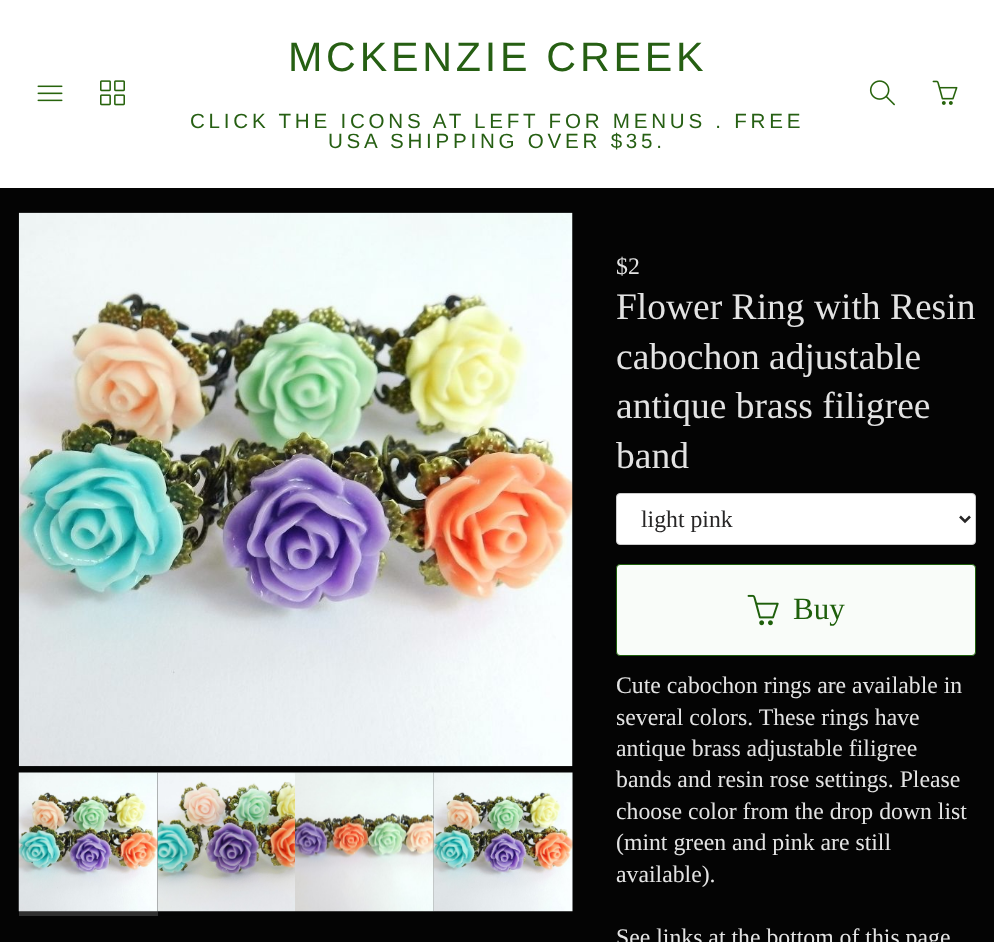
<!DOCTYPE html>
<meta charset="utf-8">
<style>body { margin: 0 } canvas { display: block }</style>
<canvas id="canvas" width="994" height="942"></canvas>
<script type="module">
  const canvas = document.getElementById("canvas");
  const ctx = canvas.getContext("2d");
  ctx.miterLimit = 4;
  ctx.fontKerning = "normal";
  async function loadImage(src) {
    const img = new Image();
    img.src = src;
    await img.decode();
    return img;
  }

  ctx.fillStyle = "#040404";
  ctx.fillRect(0, 0, 994, 942);
  ctx.fillStyle = "#ffffff";
  ctx.fillRect(0, 0, 994, 188);
  ctx.drawImage(await loadImage("img1.png"), 37, 85, 26, 17);
  ctx.drawImage(await loadImage("img2.png"), 100, 80, 25, 26);
  ctx.letterSpacing = "3.75px";
  ctx.font = "41.25px Liberation Sans";
  ctx.fillStyle = "#265f13";
  ctx.fillText("MCKENZIE CREEK", 288, 71);
  ctx.font = "20.6px Liberation Sans";
  ctx.fillText("CLICK THE ICONS AT LEFT FOR MENUS . FREE", 190, 128);
  ctx.fillText("USA SHIPPING OVER $35.", 328, 148);
  ctx.drawImage(await loadImage("img3.png"), 869, 80, 26, 26);
  ctx.drawImage(await loadImage("img4.png"), 932, 80, 26, 25);
  ctx.drawImage(await loadImage("img5.png"), 18, 212, 555, 555);
  ctx.drawImage(await loadImage("img7.png"), 157, 772, 138, 140);
  ctx.fillStyle = "rgba(73, 73, 73, 0.64)";
  ctx.beginPath();
  ctx.moveTo(19, 911);
  ctx.lineTo(19, 916);
  ctx.lineTo(158, 916);
  ctx.lineTo(158, 778);
  ctx.lineTo(158, 911);
  ctx.closePath();
  ctx.fill();
  ctx.fillStyle = "rgba(73, 73, 73, 0.44)";
  ctx.filter = "blur(0.5px)";
  ctx.beginPath();
  ctx.rect(19, 773, 139, 138);
  ctx.fill();
  ctx.filter = "none";
  ctx.drawImage(await loadImage("img6.png"), 18, 772, 140, 140);
  ctx.drawImage(await loadImage("img8.png"), 295, 772, 139, 140);
  ctx.drawImage(await loadImage("img9.png"), 433, 772, 140, 140);
  ctx.letterSpacing = "0px";
  ctx.font = "23.75px Liberation Serif";
  ctx.fillStyle = "#e3e3e3";
  ctx.fillText("$2", 616, 274);
  ctx.font = "37.5px Liberation Serif";
  ctx.fillText("Flower Ring with Resin", 616, 319);
  ctx.fillText("cabochon adjustable", 616, 369);
  ctx.fillText("antique brass filigree", 616, 418);
  ctx.fillText("band", 616, 468);
  ctx.fillStyle = "#ffffff";
  ctx.beginPath();
  ctx.roundRect(616.5, 493.5, 359, 51, 3.5);
  ctx.fill();
  ctx.strokeStyle = "#cccccc";
  ctx.stroke();
  ctx.beginPath();
  ctx.moveTo(960, 516.5);
  ctx.lineTo(965, 521.5);
  ctx.lineTo(970, 516.5);
  ctx.strokeStyle = "#272626";
  ctx.lineWidth = 2.5;
  ctx.stroke();
  ctx.font = "23.75px Liberation Serif";
  ctx.fillStyle = "#272626";
  ctx.fillText("light pink", 641, 527);
  ctx.fillStyle = "#f9fcf9";
  ctx.beginPath();
  ctx.roundRect(616.5, 564.5, 359, 91, 3.5);
  ctx.fill();
  ctx.strokeStyle = "#1e5f0b";
  ctx.lineWidth = 1;
  ctx.stroke();
  ctx.drawImage(await loadImage("img10.png"), 747, 594, 32, 32);
  ctx.font = "31px Liberation Serif";
  ctx.fillStyle = "#1e5f0b";
  ctx.fillText("Buy", 793, 619);
  ctx.font = "23.75px Liberation Serif";
  ctx.fillStyle = "#e3e3e3";
  ctx.fillText("Cute cabochon rings are available in", 616, 693);
  ctx.fillText("several colors. These rings have", 616, 725);
  ctx.fillText("antique brass adjustable filigree", 616, 756);
  ctx.fillText("bands and resin rose settings. Please", 616, 787);
  ctx.fillText("choose color from the drop down list", 616, 819);
  ctx.fillText("(mint green and pink are still", 616, 850);
  ctx.fillText("available).", 616, 882);
  ctx.fillText("See links at the bottom of this page", 616, 945);
</script>
